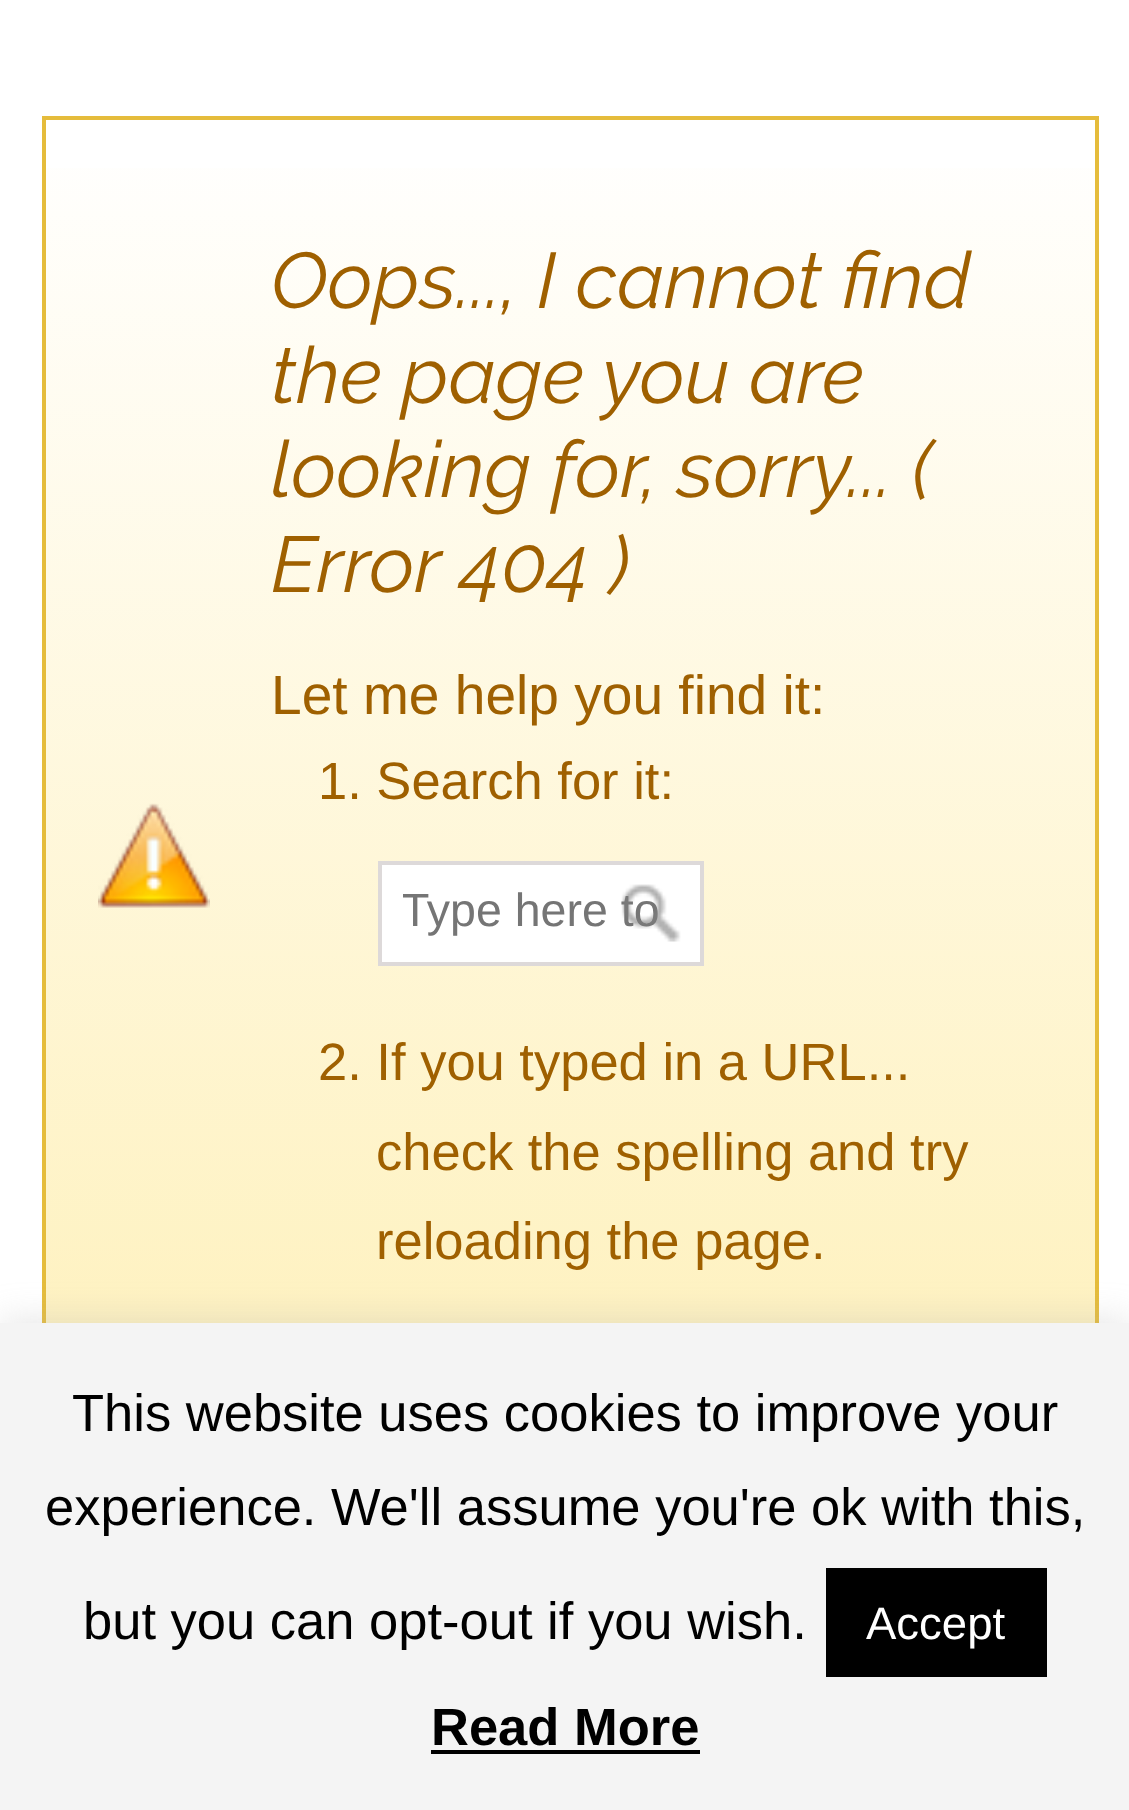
<!DOCTYPE html>
<meta charset="utf-8">
<style>body { margin: 0 } canvas { display: block }</style>
<canvas id="canvas" width="1129" height="1810"></canvas>
<script type="module">
  const canvas = document.getElementById("canvas");
  const ctx = canvas.getContext("2d");
  ctx.miterLimit = 4;
  ctx.fontKerning = "normal";
  async function loadImage(src) {
    const img = new Image();
    img.src = src;
    await img.decode();
    return img;
  }
  let gradient;

  ctx.fillStyle = "#ffffff";
  ctx.fillRect(0, 0, 1129, 1810);
  gradient = ctx.createLinearGradient(571, 119, 571, 1596);
  gradient.addColorStop(0, "#ffffff");
  gradient.addColorStop(1, "#feefb3");
  ctx.fillStyle = gradient;
  ctx.fillRect(46, 168, 1049, 1155);
  ctx.strokeStyle = "#e5bc3b";
  ctx.lineWidth = 4;
  ctx.strokeRect(44, 118, 1053, 1480);
  ctx.font = "italic 100 78.75px Raleway";
  ctx.fillStyle = "#9f6000";
  ctx.fillText("Oops..., I cannot find", 271, 308);
  ctx.fillText("the page you are", 271, 403);
  ctx.fillText("looking for, sorry... (", 271, 497);
  ctx.fillText("Error 404 )", 271, 592);
  ctx.drawImage(await loadImage("img1.png"), 98, 803, 112, 105);
  ctx.font = "55.1px Liberation Sans";
  ctx.fillText("Let me help you find it:", 271, 714);
  ctx.font = "52.5px Liberation Sans";
  ctx.fillText("1. Search for it:", 318, 799);
  ctx.fillStyle = "#ffffff";
  ctx.beginPath();
  ctx.rect(380, 863, 322, 101);
  ctx.fill();
  ctx.strokeStyle = "#ddd9d9";
  ctx.stroke();
  ctx.save();
  ctx.beginPath();
  ctx.rect(403, 886, 276, 52);
  ctx.clip();
  ctx.font = "46.5px Liberation Sans";
  ctx.fillStyle = "#757575";
  ctx.fillText("Type here to", 401, 926);
  ctx.restore();
  ctx.drawImage(await loadImage("img2.png"), 621, 884, 60, 58);
  ctx.fillStyle = "#9f6000";
  ctx.fillText("2. If you typed in a URL...", 318, 1080);
  ctx.fillText("check the spelling and try", 376, 1170);
  ctx.fillText("reloading the page.", 376, 1259);
  ctx.fillStyle = "rgba(172, 171, 171, 0.3)";
  ctx.filter = "blur(17.5px)";
  ctx.beginPath();
  ctx.rect(0, 1320, 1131, 490);
  ctx.fill();
  ctx.filter = "none";
  ctx.fillStyle = "#f4f4f4";
  ctx.fillRect(0, 1323, 1129, 487);
  ctx.fillStyle = "#000000";
  ctx.fillText("This website uses cookies to improve your", 72, 1431);
  ctx.fillText("experience. We'll assume you're ok with this,", 45, 1525);
  ctx.fillText("but you can opt-out if you wish.", 83, 1639);
  ctx.fillRect(826, 1568, 221, 109);
  ctx.font = "45.5px Liberation Sans";
  ctx.fillStyle = "#ffffff";
  ctx.fillText("Accept", 866, 1639);
  ctx.font = "bold 52.5px Liberation Sans";
  ctx.fillStyle = "#000000";
  ctx.fillText("Read More", 431, 1745);
  ctx.fillRect(431, 1750, 269, 4);
</script>
